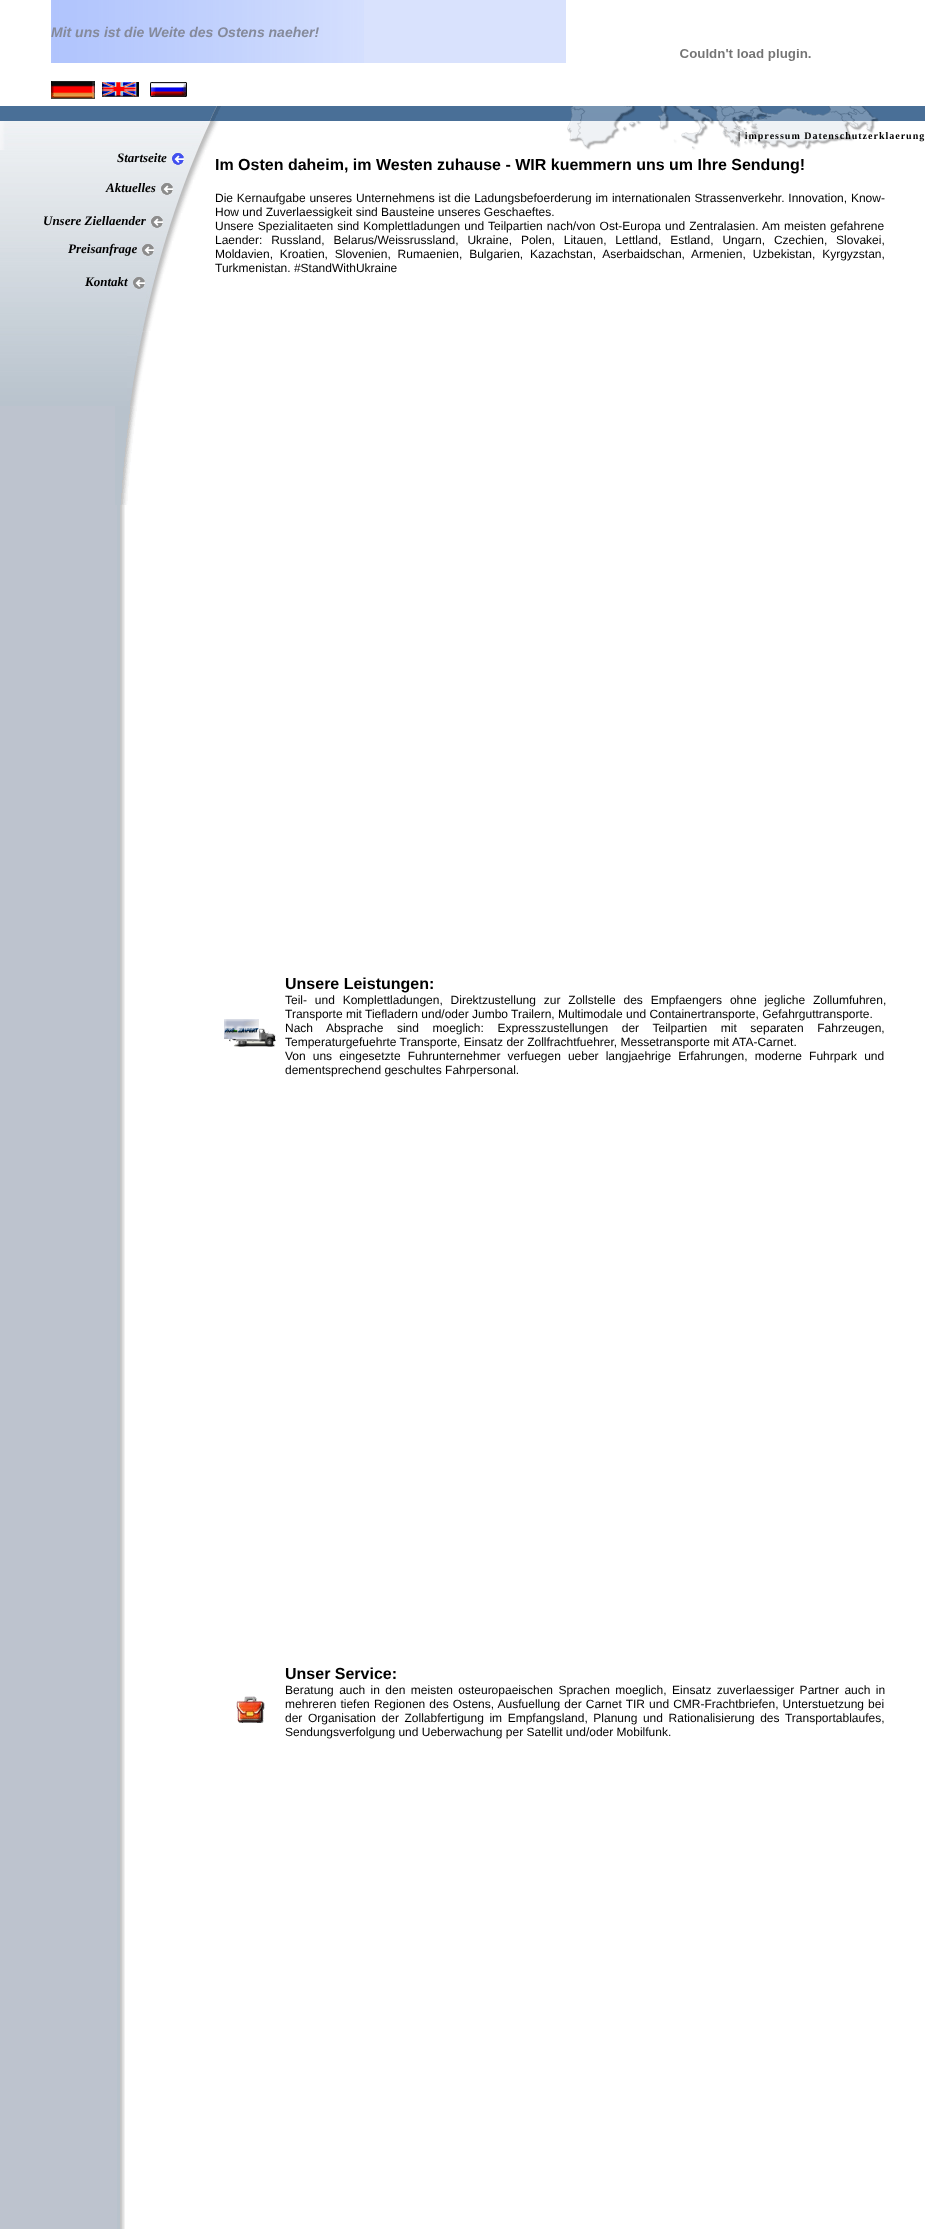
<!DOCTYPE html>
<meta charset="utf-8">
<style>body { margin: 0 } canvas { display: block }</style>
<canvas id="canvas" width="925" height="2229"></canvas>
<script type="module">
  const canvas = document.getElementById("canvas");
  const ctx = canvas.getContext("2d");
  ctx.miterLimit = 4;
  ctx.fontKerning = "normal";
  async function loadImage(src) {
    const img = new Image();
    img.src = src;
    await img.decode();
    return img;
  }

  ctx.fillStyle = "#ffffff";
  ctx.fillRect(0, 0, 925, 2229);
  ctx.fillStyle = "#d9e2fd";
  ctx.fillRect(364, 0, 202, 63);
  ctx.drawImage(await loadImage("img1.png"), 51, 0, 313, 63);
  ctx.font = "italic bold 14px Liberation Sans";
  ctx.fillStyle = "#858a9b";
  ctx.fillText("Mit uns ist die Weite des Ostens naeher!", 51, 37);
  ctx.drawImage(await loadImage("img2.png"), 680, 49, 131, 12);
  ctx.drawImage(await loadImage("img3.png"), 51, 81, 44, 18);
  ctx.drawImage(await loadImage("img4.png"), 102, 82, 37, 15);
  ctx.drawImage(await loadImage("img5.png"), 150, 82, 37, 15);
  ctx.fillStyle = "#496f97";
  ctx.fillRect(0, 106, 925, 15);
  ctx.drawImage(await loadImage("img6.png"), 209, 106, 12, 15);
  ctx.drawImage(await loadImage("img7.png"), 570, 106, 309, 15);
  ctx.drawImage(await loadImage("img8.png"), 0, 121, 219, 29);
  ctx.drawImage(await loadImage("img9.png"), 567, 121, 312, 29);
  ctx.letterSpacing = "1px";
  ctx.font = "bold 10px Liberation Serif";
  ctx.fillStyle = "#000000";
  ctx.fillText("| impressum Datenschutzerklaerung", 738, 139);
  ctx.drawImage(await loadImage("img10.png"), 0, 150, 185, 256);
  ctx.letterSpacing = "0px";
  ctx.font = "italic bold 13px Liberation Serif";
  ctx.fillText("Startseite", 117, 162);
  ctx.drawImage(await loadImage("img11.png"), 172, 153, 12, 12);
  ctx.drawImage(await loadImage("img12.png"), 185, 150, 20, 30);
  ctx.fillText("Aktuelles", 106, 192);
  ctx.drawImage(await loadImage("img13.png"), 161, 183, 12, 12);
  ctx.drawImage(await loadImage("img14.png"), 174, 180, 19, 33);
  ctx.fillText("Unsere Ziellaender", 43, 225);
  ctx.drawImage(await loadImage("img15.png"), 151, 216, 12, 12);
  ctx.fillStyle = "#ffffff";
  ctx.fillRect(181, 213, 4, 28);
  ctx.drawImage(await loadImage("img16.png"), 164, 213, 17, 28);
  ctx.fillStyle = "#000000";
  ctx.fillText("Preisanfrage", 68, 253);
  ctx.drawImage(await loadImage("img17.png"), 142, 244, 12, 12);
  ctx.fillStyle = "#ffffff";
  ctx.fillRect(172, 241, 13, 33);
  ctx.drawImage(await loadImage("img18.png"), 155, 241, 17, 33);
  ctx.fillStyle = "#000000";
  ctx.fillText("Kontakt", 85, 286);
  ctx.drawImage(await loadImage("img19.png"), 133, 277, 12, 12);
  ctx.fillStyle = "#ffffff";
  ctx.fillRect(163, 274, 22, 29);
  ctx.drawImage(await loadImage("img20.png"), 146, 274, 17, 29);
  ctx.fillRect(156, 303, 29, 28);
  ctx.drawImage(await loadImage("img21.png"), 139, 303, 17, 28);
  ctx.fillRect(149, 331, 36, 75);
  ctx.drawImage(await loadImage("img22.png"), 127, 331, 22, 75);
  ctx.fillStyle = "#bdc3ce";
  ctx.fillRect(0, 406, 115, 99);
  ctx.drawImage(await loadImage("img23.png"), 115, 406, 22, 99);
  ctx.fillRect(0, 505, 117, 1724);
  ctx.drawImage(await loadImage("img24.png"), 117, 505, 8, 1724);
  ctx.font = "bold 16px Liberation Sans";
  ctx.fillStyle = "#000000";
  ctx.fillText("Im Osten daheim, im Westen zuhause - WIR kuemmern uns um Ihre Sendung!", 215, 170);
  ctx.wordSpacing = "0.5px";
  ctx.font = "12px Liberation Sans";
  ctx.fillText("Die Kernaufgabe unseres Unternehmens ist die Ladungsbefoerderung im internationalen Strassenverkehr. Innovation, Know-", 215, 202);
  ctx.wordSpacing = "0px";
  ctx.fillText("How und Zuverlaessigkeit sind Bausteine unseres Geschaeftes.", 215, 216);
  ctx.wordSpacing = "0.75px";
  ctx.fillText("Unsere Spezialitaeten sind Komplettladungen und Teilpartien nach/von Ost-Europa und Zentralasien. Am meisten gefahrene", 215, 230);
  ctx.wordSpacing = "5.5px";
  ctx.fillText("Laender: Russland, Belarus/Weissrussland, Ukraine, Polen, Litauen, Lettland, Estland, Ungarn, Czechien, Slovakei,", 215, 244);
  ctx.wordSpacing = "3.5px";
  ctx.fillText("Moldavien, Kroatien, Slovenien, Rumaenien, Bulgarien, Kazachstan, Aserbaidschan, Armenien, Uzbekistan, Kyrgyzstan,", 215, 258);
  ctx.wordSpacing = "0px";
  ctx.fillText("Turkmenistan. #StandWithUkraine", 215, 272);
  ctx.drawImage(await loadImage("img25.png"), 224, 1019, 52, 28);
  ctx.font = "bold 16px Liberation Sans";
  ctx.fillText("Unsere Leistungen:", 285, 989);
  ctx.wordSpacing = "4.5px";
  ctx.font = "12px Liberation Sans";
  ctx.fillText("Teil- und Komplettladungen, Direktzustellung zur Zollstelle des Empfaengers ohne jegliche Zollumfuhren,", 285, 1004);
  ctx.wordSpacing = "0px";
  ctx.fillText("Transporte mit Tiefladern und/oder Jumbo Trailern, Multimodale und Containertransporte, Gefahrguttransporte.", 285, 1018);
  ctx.wordSpacing = "10.25px";
  ctx.fillText("Nach Absprache sind moeglich: Expresszustellungen der Teilpartien mit separaten Fahrzeugen,", 285, 1032);
  ctx.wordSpacing = "0px";
  ctx.fillText("Temperaturgefuehrte Transporte, Einsatz der Zollfrachtfuehrer, Messetransporte mit ATA-Carnet.", 285, 1046);
  ctx.wordSpacing = "3.75px";
  ctx.fillText("Von uns eingesetzte Fuhrunternehmer verfuegen ueber langjaehrige Erfahrungen, moderne Fuhrpark und", 285, 1060);
  ctx.wordSpacing = "0px";
  ctx.fillText("dementsprechend geschultes Fahrpersonal.", 285, 1074);
  ctx.drawImage(await loadImage("img26.png"), 236, 1696, 29, 27);
  ctx.font = "bold 16px Liberation Sans";
  ctx.fillText("Unser Service:", 285, 1679);
  ctx.wordSpacing = "2.1px";
  ctx.font = "12px Liberation Sans";
  ctx.fillText("Beratung auch in den meisten osteuropaeischen Sprachen moeglich, Einsatz zuverlaessiger Partner auch in", 285, 1694);
  ctx.wordSpacing = "0.75px";
  ctx.fillText("mehreren tiefen Regionen des Ostens, Ausfuellung der Carnet TIR und CMR-Frachtbriefen, Unterstuetzung bei", 285, 1708);
  ctx.wordSpacing = "2.25px";
  ctx.fillText("der Organisation der Zollabfertigung im Empfangsland, Planung und Rationalisierung des Transportablaufes,", 285, 1722);
  ctx.wordSpacing = "0px";
  ctx.fillText("Sendungsverfolgung und Ueberwachung per Satellit und/oder Mobilfunk.", 285, 1736);
</script>
